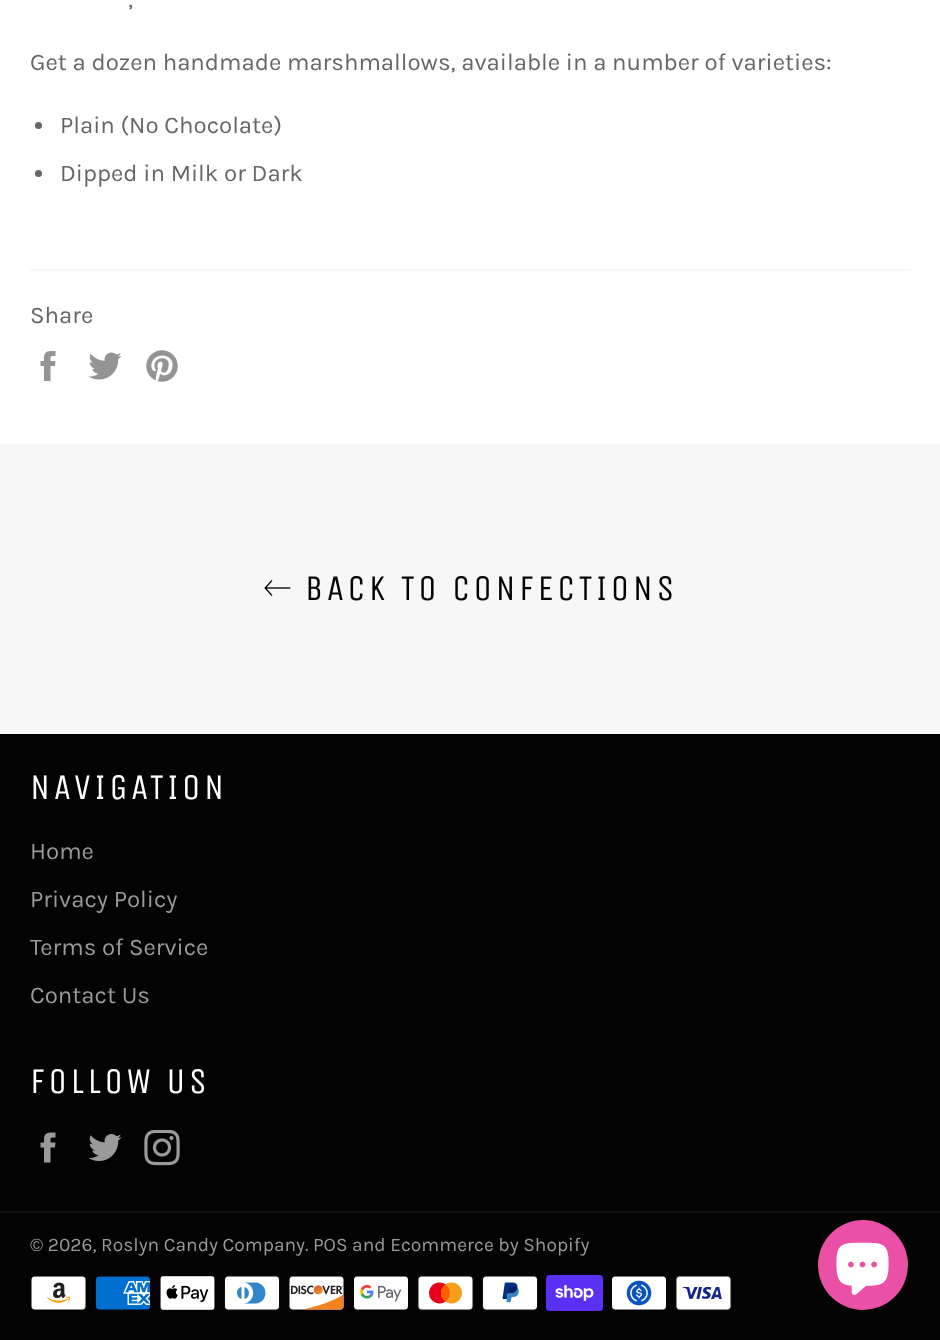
<!DOCTYPE html>
<meta charset="utf-8">
<style>body { margin: 0 } canvas { display: block }</style>
<canvas id="canvas" width="940" height="1340"></canvas>
<script type="module">
  const canvas = document.getElementById("canvas");
  const ctx = canvas.getContext("2d");
  ctx.miterLimit = 4;
  ctx.fontKerning = "normal";
  async function loadImage(src) {
    const img = new Image();
    img.src = src;
    await img.decode();
    return img;
  }

  ctx.fillStyle = "#ffffff";
  ctx.fillRect(0, 0, 940, 1340);
  ctx.font = "24px Karla";
  ctx.fillStyle = "#666666";
  ctx.fillText(",", 128, 7);
  ctx.fillText("Get a dozen handmade marshmallows, available in a number of varieties:", 30, 70);
  ctx.beginPath();
  ctx.arc(38.5, 125.5, 3.5, 0, Math.PI * 2);
  ctx.fill();
  ctx.fillText("Plain (No Chocolate)", 60, 133);
  ctx.beginPath();
  ctx.arc(38.5, 173.5, 3.5, 0, Math.PI * 2);
  ctx.fill();
  ctx.fillText("Dipped in Milk or Dark", 60, 181);
  ctx.fillStyle = "#f7f7f7";
  ctx.fillRect(30, 269, 881, 2);
  ctx.fillStyle = "#666666";
  ctx.fillText("Share", 30, 323);
  ctx.drawImage(await loadImage("img1.png"), 40, 351, 16, 30);
  ctx.drawImage(await loadImage("img2.png"), 88, 352, 34, 28);
  ctx.drawImage(await loadImage("img3.png"), 146, 350, 32, 32);
  ctx.fillStyle = "#f7f7f7";
  ctx.fillRect(0, 444, 940, 290);
  ctx.drawImage(await loadImage("img4.png"), 264, 580, 27, 16);
  ctx.letterSpacing = "3.6px";
  ctx.font = "36px Unica One";
  ctx.fillStyle = "#030303";
  ctx.fillText("BACK TO CONFECTIONS", 305, 600);
  ctx.fillRect(0, 734, 940, 606);
  ctx.fillStyle = "#ffffff";
  ctx.fillText("NAVIGATION", 30, 799);
  ctx.letterSpacing = "0px";
  ctx.font = "24px Karla";
  ctx.fillStyle = "#9a9a9a";
  ctx.fillText("Home", 30, 859);
  ctx.fillText("Privacy Policy", 30, 907);
  ctx.fillText("Terms of Service", 30, 955);
  ctx.fillText("Contact Us", 30, 1003);
  ctx.letterSpacing = "3.6px";
  ctx.font = "36px Unica One";
  ctx.fillStyle = "#ffffff";
  ctx.fillText("FOLLOW US", 30, 1093);
  ctx.drawImage(await loadImage("img5.png"), 40, 1132, 16, 31);
  ctx.drawImage(await loadImage("img6.png"), 88, 1134, 34, 27);
  ctx.drawImage(await loadImage("img7.png"), 144, 1130, 36, 36);
  ctx.fillStyle = "#101010";
  ctx.fillRect(0, 1211, 940, 2);
  ctx.letterSpacing = "0px";
  ctx.font = "19.2px Karla";
  ctx.fillStyle = "#9a9a9a";
  ctx.fillText("© 2026, Roslyn Candy Company. POS and Ecommerce by Shopify", 30, 1251);
  ctx.drawImage(await loadImage("img8.png"), 31, 1276, 55, 34);
  ctx.drawImage(await loadImage("img9.png"), 96, 1276, 54, 34);
  ctx.drawImage(await loadImage("img10.png"), 160, 1276, 55, 34);
  ctx.drawImage(await loadImage("img11.png"), 224, 1275, 56, 36);
  ctx.drawImage(await loadImage("img12.png"), 289, 1276, 55, 34);
  ctx.drawImage(await loadImage("img13.png"), 354, 1276, 54, 34);
  ctx.drawImage(await loadImage("img14.png"), 417, 1275, 57, 36);
  ctx.drawImage(await loadImage("img15.png"), 482, 1275, 56, 36);
  ctx.drawImage(await loadImage("img16.png"), 546, 1275, 57, 36);
  ctx.drawImage(await loadImage("img17.png"), 612, 1276, 54, 34);
  ctx.drawImage(await loadImage("img18.png"), 675, 1275, 57, 36);
  ctx.fillStyle = "#e950a6";
  ctx.beginPath();
  ctx.arc(863, 1265, 45, 0, Math.PI * 2);
  ctx.fill();
  ctx.drawImage(await loadImage("img19.png"), 836, 1242, 53, 53);
</script>
